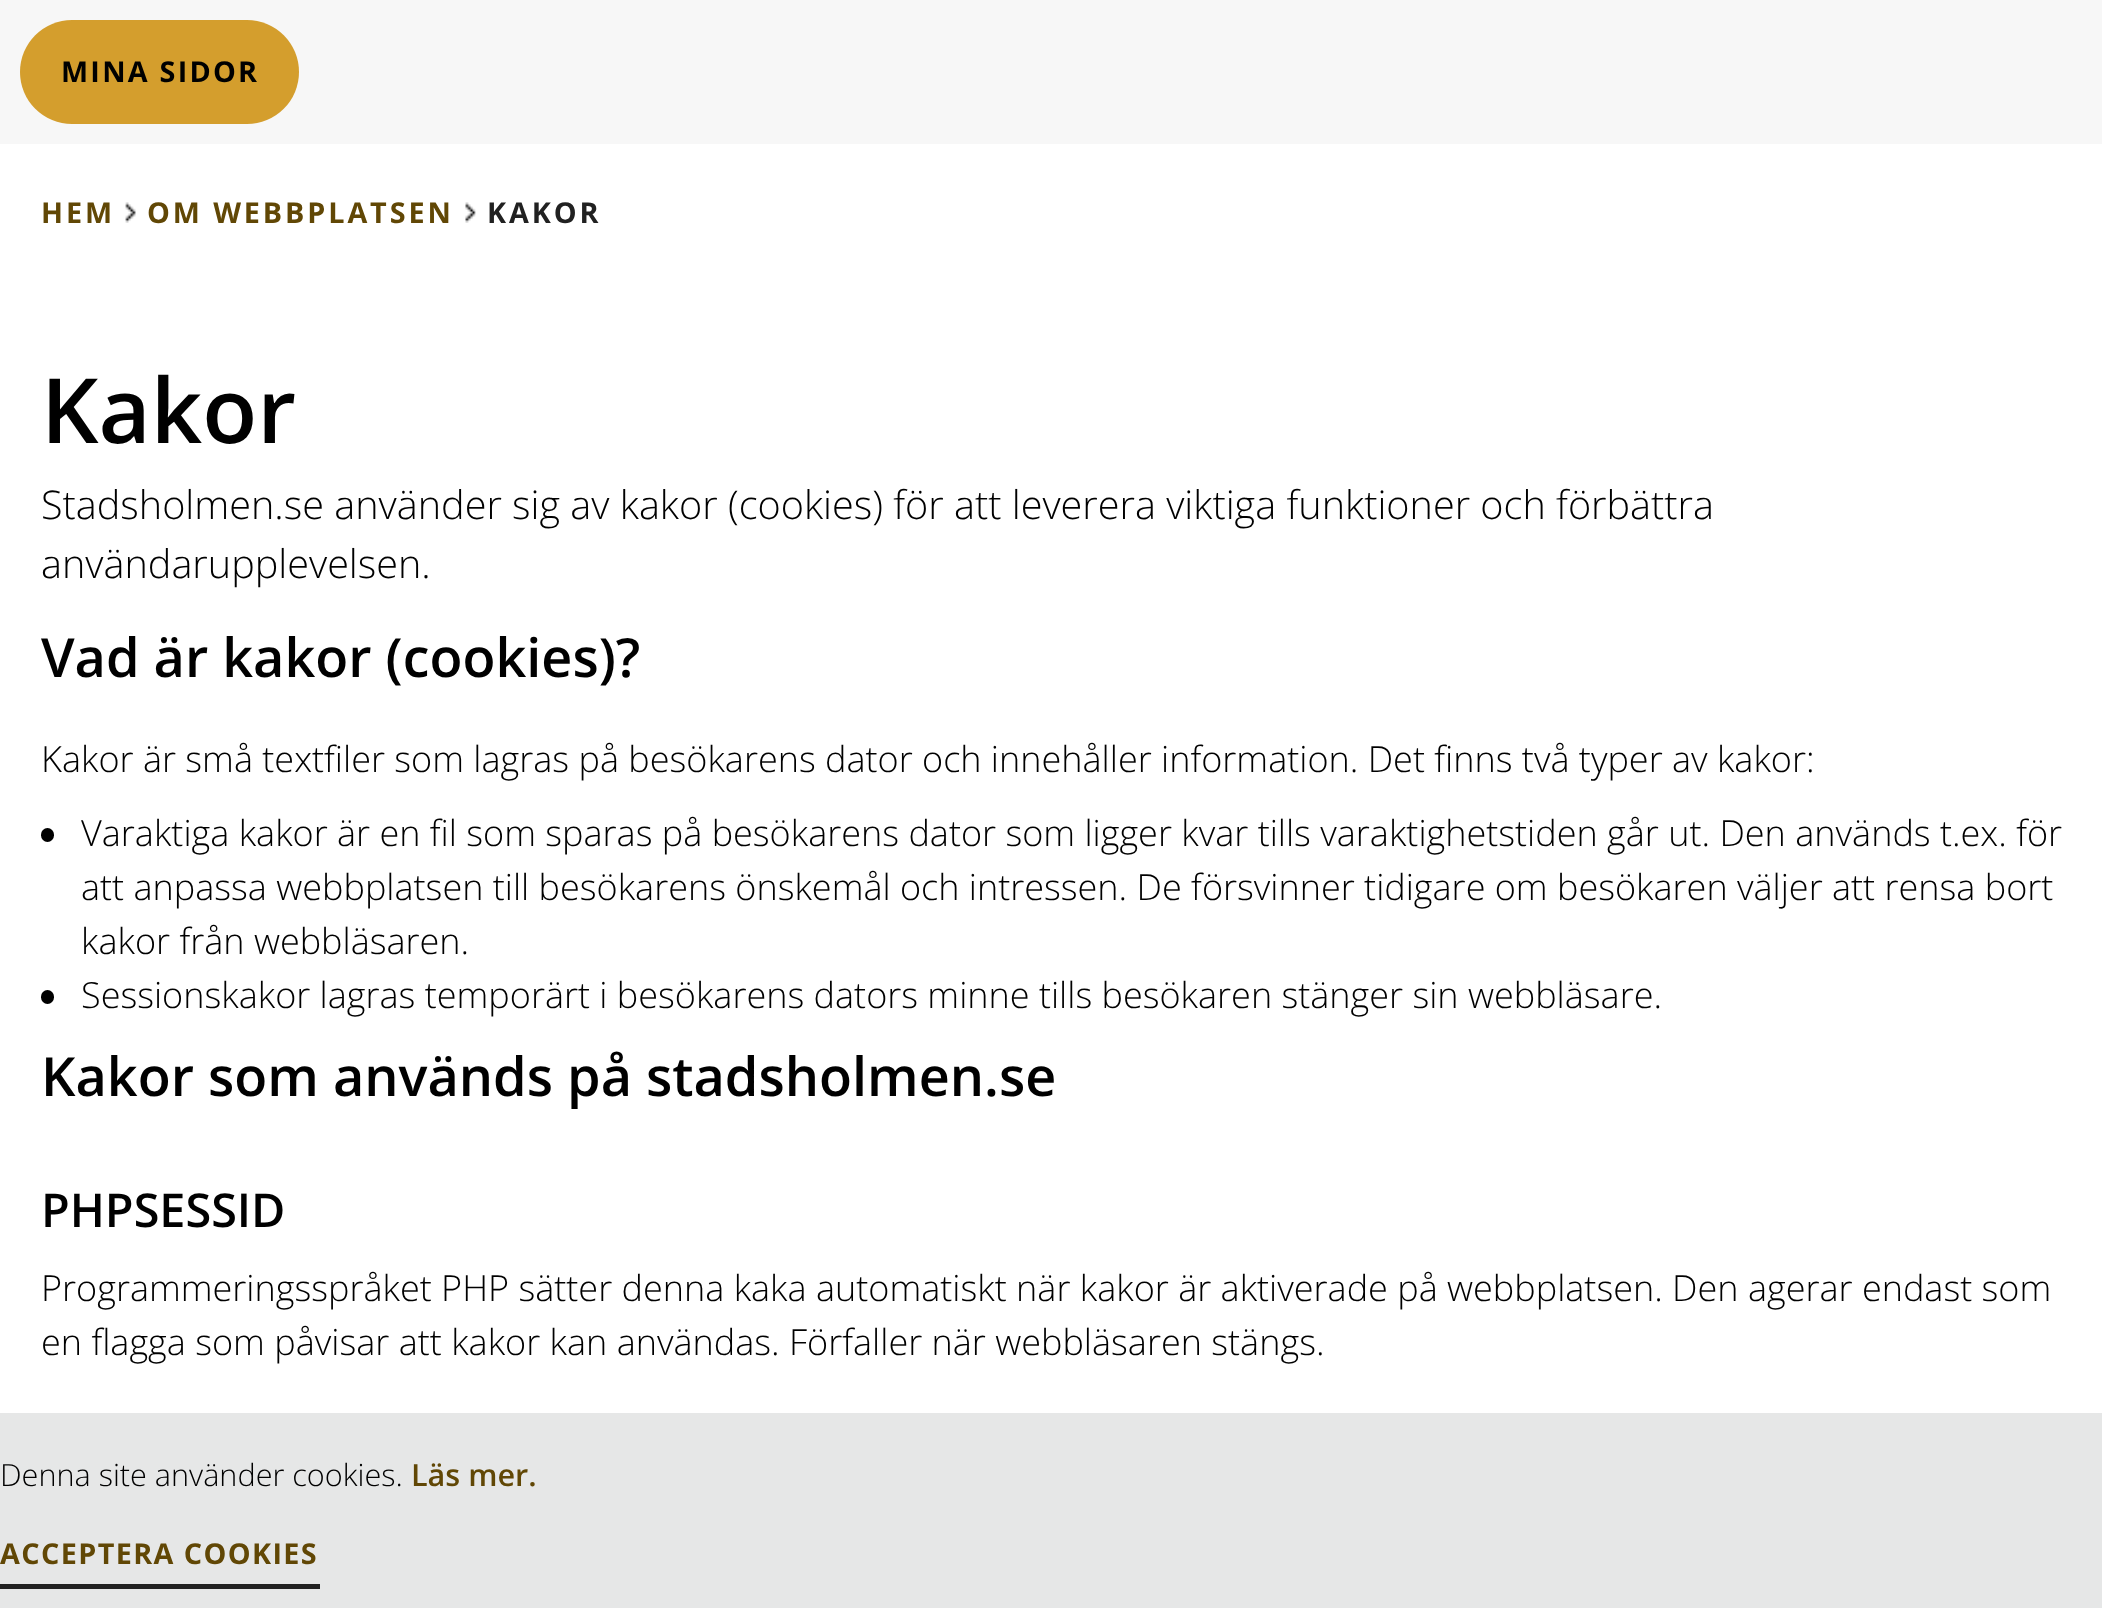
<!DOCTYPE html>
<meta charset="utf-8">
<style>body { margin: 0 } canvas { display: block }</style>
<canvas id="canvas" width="2102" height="1608"></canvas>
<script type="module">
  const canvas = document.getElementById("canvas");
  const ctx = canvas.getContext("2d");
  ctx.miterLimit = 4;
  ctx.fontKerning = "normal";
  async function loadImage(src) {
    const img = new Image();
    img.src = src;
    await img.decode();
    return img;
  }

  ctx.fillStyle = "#ffffff";
  ctx.fillRect(0, 0, 2102, 1608);
  ctx.fillStyle = "#f7f7f7";
  ctx.fillRect(0, 0, 2102, 144);
  ctx.fillStyle = "#d49e2d";
  ctx.beginPath();
  ctx.roundRect(20, 20, 279, 104, 52);
  ctx.fill();
  ctx.letterSpacing = "2.25px";
  ctx.font = "bold 28.75px Open Sans";
  ctx.fillStyle = "#000000";
  ctx.fillText("MINA SIDOR", 61, 82);
  ctx.letterSpacing = "2.9px";
  ctx.fillStyle = "#614705";
  ctx.fillText("HEM", 41, 223);
  ctx.drawImage(await loadImage("img1.png"), 125, 202, 11, 21);
  ctx.fillText("OM WEBBPLATSEN", 147, 223);
  ctx.drawImage(await loadImage("img2.png"), 465, 202, 11, 21);
  ctx.fillStyle = "#212121";
  ctx.fillText("KAKOR", 487, 223);
  ctx.letterSpacing = "0px";
  ctx.font = "600 90px Open Sans";
  ctx.fillStyle = "#000000";
  ctx.fillText("Kakor", 41, 443);
  ctx.font = "300 39.6px Open Sans";
  ctx.fillText("Stadsholmen.se använder sig av kakor (cookies) för att leverera viktiga funktioner och förbättra", 41, 519);
  ctx.fillText("användarupplevelsen.", 41, 578);
  ctx.font = "600 54px Open Sans";
  ctx.fillText("Vad är kakor (cookies)?", 41, 677);
  ctx.font = "300 36px Open Sans";
  ctx.fillText("Kakor är små textfiler som lagras på besökarens dator och innehåller information. Det finns två typer av kakor:", 41, 772);
  ctx.beginPath();
  ctx.roundRect(41, 828, 13, 14, 6.5);
  ctx.fill();
  ctx.fillText("Varaktiga kakor är en fil som sparas på besökarens dator som ligger kvar tills varaktighetstiden går ut. Den används t.ex. för", 81, 846);
  ctx.fillText("att anpassa webbplatsen till besökarens önskemål och intressen. De försvinner tidigare om besökaren väljer att rensa bort", 81, 900);
  ctx.fillText("kakor från webbläsaren.", 81, 954);
  ctx.beginPath();
  ctx.roundRect(41, 990, 13, 14, 6.5);
  ctx.fill();
  ctx.fillText("Sessionskakor lagras temporärt i besökarens dators minne tills besökaren stänger sin webbläsare.", 81, 1008);
  ctx.font = "600 54px Open Sans";
  ctx.fillText("Kakor som används på stadsholmen.se", 41, 1096);
  ctx.font = "600 46.75px Open Sans";
  ctx.fillText("PHPSESSID", 41, 1227);
  ctx.font = "300 36px Open Sans";
  ctx.fillText("Programmeringsspråket PHP sätter denna kaka automatiskt när kakor är aktiverade på webbplatsen. Den agerar endast som", 41, 1301);
  ctx.fillText("en flagga som påvisar att kakor kan användas. Förfaller när webbläsaren stängs.", 41, 1355);
  ctx.fillStyle = "#e6e7e7";
  ctx.fillRect(0, 1413, 2102, 195);
  ctx.font = "300 30.6px Open Sans";
  ctx.fillStyle = "#000000";
  ctx.fillText("Denna site använder cookies.", 0, 1486);
  ctx.font = "600 30.6px Open Sans";
  ctx.fillStyle = "#614705";
  ctx.fillText("Läs mer.", 411, 1486);
  ctx.letterSpacing = "1.4px";
  ctx.font = "bold 28.75px Open Sans";
  ctx.fillText("ACCEPTERA COOKIES", 0, 1564);
  ctx.fillStyle = "#212121";
  ctx.fillRect(0, 1584, 320, 5);
</script>
